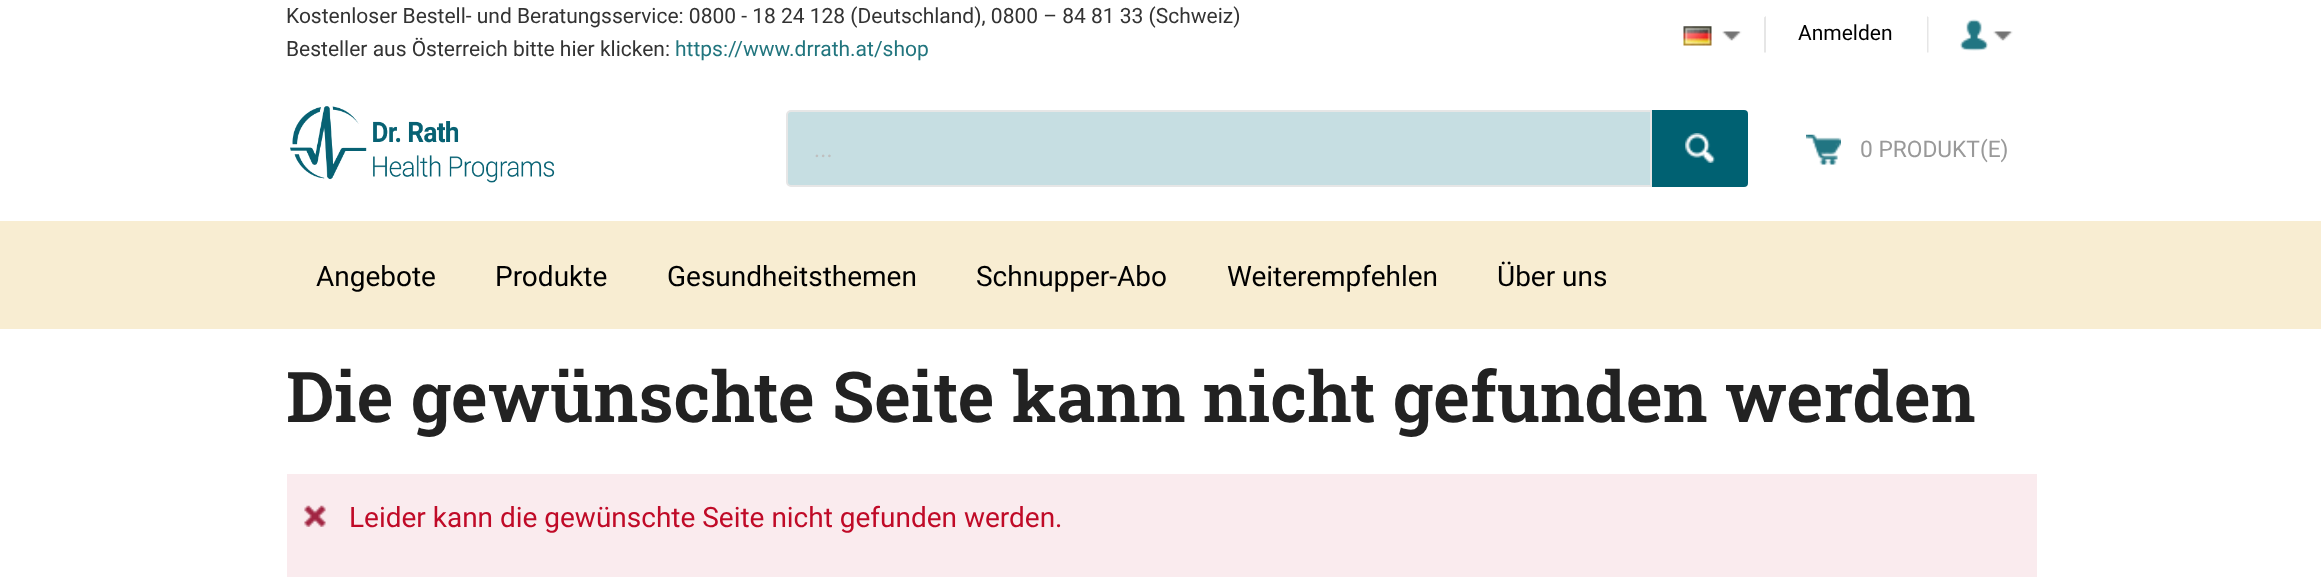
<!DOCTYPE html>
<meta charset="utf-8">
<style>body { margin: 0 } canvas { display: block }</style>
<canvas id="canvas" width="2321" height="577"></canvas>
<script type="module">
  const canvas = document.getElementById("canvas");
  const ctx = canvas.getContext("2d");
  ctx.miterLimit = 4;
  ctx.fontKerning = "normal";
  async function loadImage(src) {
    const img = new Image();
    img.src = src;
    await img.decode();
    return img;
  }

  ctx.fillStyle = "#ffffff";
  ctx.fillRect(0, 0, 2321, 577);
  ctx.font = "21px Roboto";
  ctx.fillStyle = "#333333";
  ctx.fillText("Kostenloser Bestell- und Beratungsservice: 0800 - 18 24 128 (Deutschland), 0800 – 84 81 33 (Schweiz)", 286, 23);
  ctx.fillText("Besteller aus Österreich bitte hier klicken:", 286, 56);
  ctx.fillStyle = "#21757e";
  ctx.fillText("https://www.drrath.at/shop", 675, 56);
  ctx.fillStyle = "#e6e6e6";
  ctx.beginPath();
  ctx.moveTo(1766, 16);
  ctx.lineTo(1766, 52.5);
  ctx.lineTo(1764, 52.5);
  ctx.lineTo(1764, 17.5);
  ctx.closePath();
  ctx.fill();
  ctx.drawImage(await loadImage("img1.png"), 1683, 26, 29, 20);
  ctx.drawImage(await loadImage("img2.png"), 1722, 31, 20, 10);
  ctx.fillStyle = "#000000";
  ctx.fillText("Anmelden", 1798, 40);
  ctx.fillStyle = "#e6e6e6";
  ctx.beginPath();
  ctx.moveTo(1927, 52.5);
  ctx.lineTo(1927, 16);
  ctx.lineTo(1928.5, 17.5);
  ctx.lineTo(1928.5, 52.5);
  ctx.closePath();
  ctx.fill();
  ctx.drawImage(await loadImage("img3.png"), 1960, 19, 28, 32);
  ctx.drawImage(await loadImage("img4.png"), 1993, 31, 20, 10);
  ctx.drawImage(await loadImage("img5.png"), 290, 106, 265, 77);
  ctx.fillStyle = "#c6dee2";
  ctx.beginPath();
  ctx.roundRect(787, 111, 864, 75, [4, 0, 0, 4]);
  ctx.fill();
  ctx.strokeStyle = "#e6e6e6";
  ctx.lineWidth = 2;
  ctx.stroke();
  ctx.font = "italic 24px Roboto";
  ctx.fillStyle = "#bfbfbf";
  ctx.fillText("...", 815, 157);
  ctx.fillStyle = "#006172";
  ctx.beginPath();
  ctx.roundRect(1652, 110, 96, 77, [0, 4, 4, 0]);
  ctx.fill();
  ctx.drawImage(await loadImage("img6.png"), 1685, 133, 30, 30);
  ctx.drawImage(await loadImage("img7.png"), 1806, 134, 35, 31);
  ctx.font = "22.75px Roboto";
  ctx.fillStyle = "#999999";
  ctx.fillText("0 PRODUKT(E)", 1860, 157);
  ctx.fillStyle = "#f8edd2";
  ctx.fillRect(0, 221, 2321, 108);
  ctx.font = "28px Roboto";
  ctx.fillStyle = "#000000";
  ctx.fillText("Angebote", 316, 286);
  ctx.fillText("Produkte", 495, 286);
  ctx.fillText("Gesundheitsthemen", 667, 286);
  ctx.fillText("Schnupper-Abo", 976, 286);
  ctx.fillText("Weiterempfehlen", 1227, 286);
  ctx.fillText("Über uns", 1497, 286);
  ctx.font = "600 70px Roboto Slab";
  ctx.fillStyle = "#222222";
  ctx.fillText("Die gewünschte Seite kann nicht gefunden werden", 286, 422);
  ctx.fillStyle = "#faebee";
  ctx.fillRect(287, 474, 1750, 103);
  ctx.drawImage(await loadImage("img8.png"), 304, 505, 22, 22);
  ctx.font = "28px Roboto";
  ctx.fillStyle = "#c00a27";
  ctx.fillText("Leider kann die gewünschte Seite nicht gefunden werden.", 349, 527);
</script>
